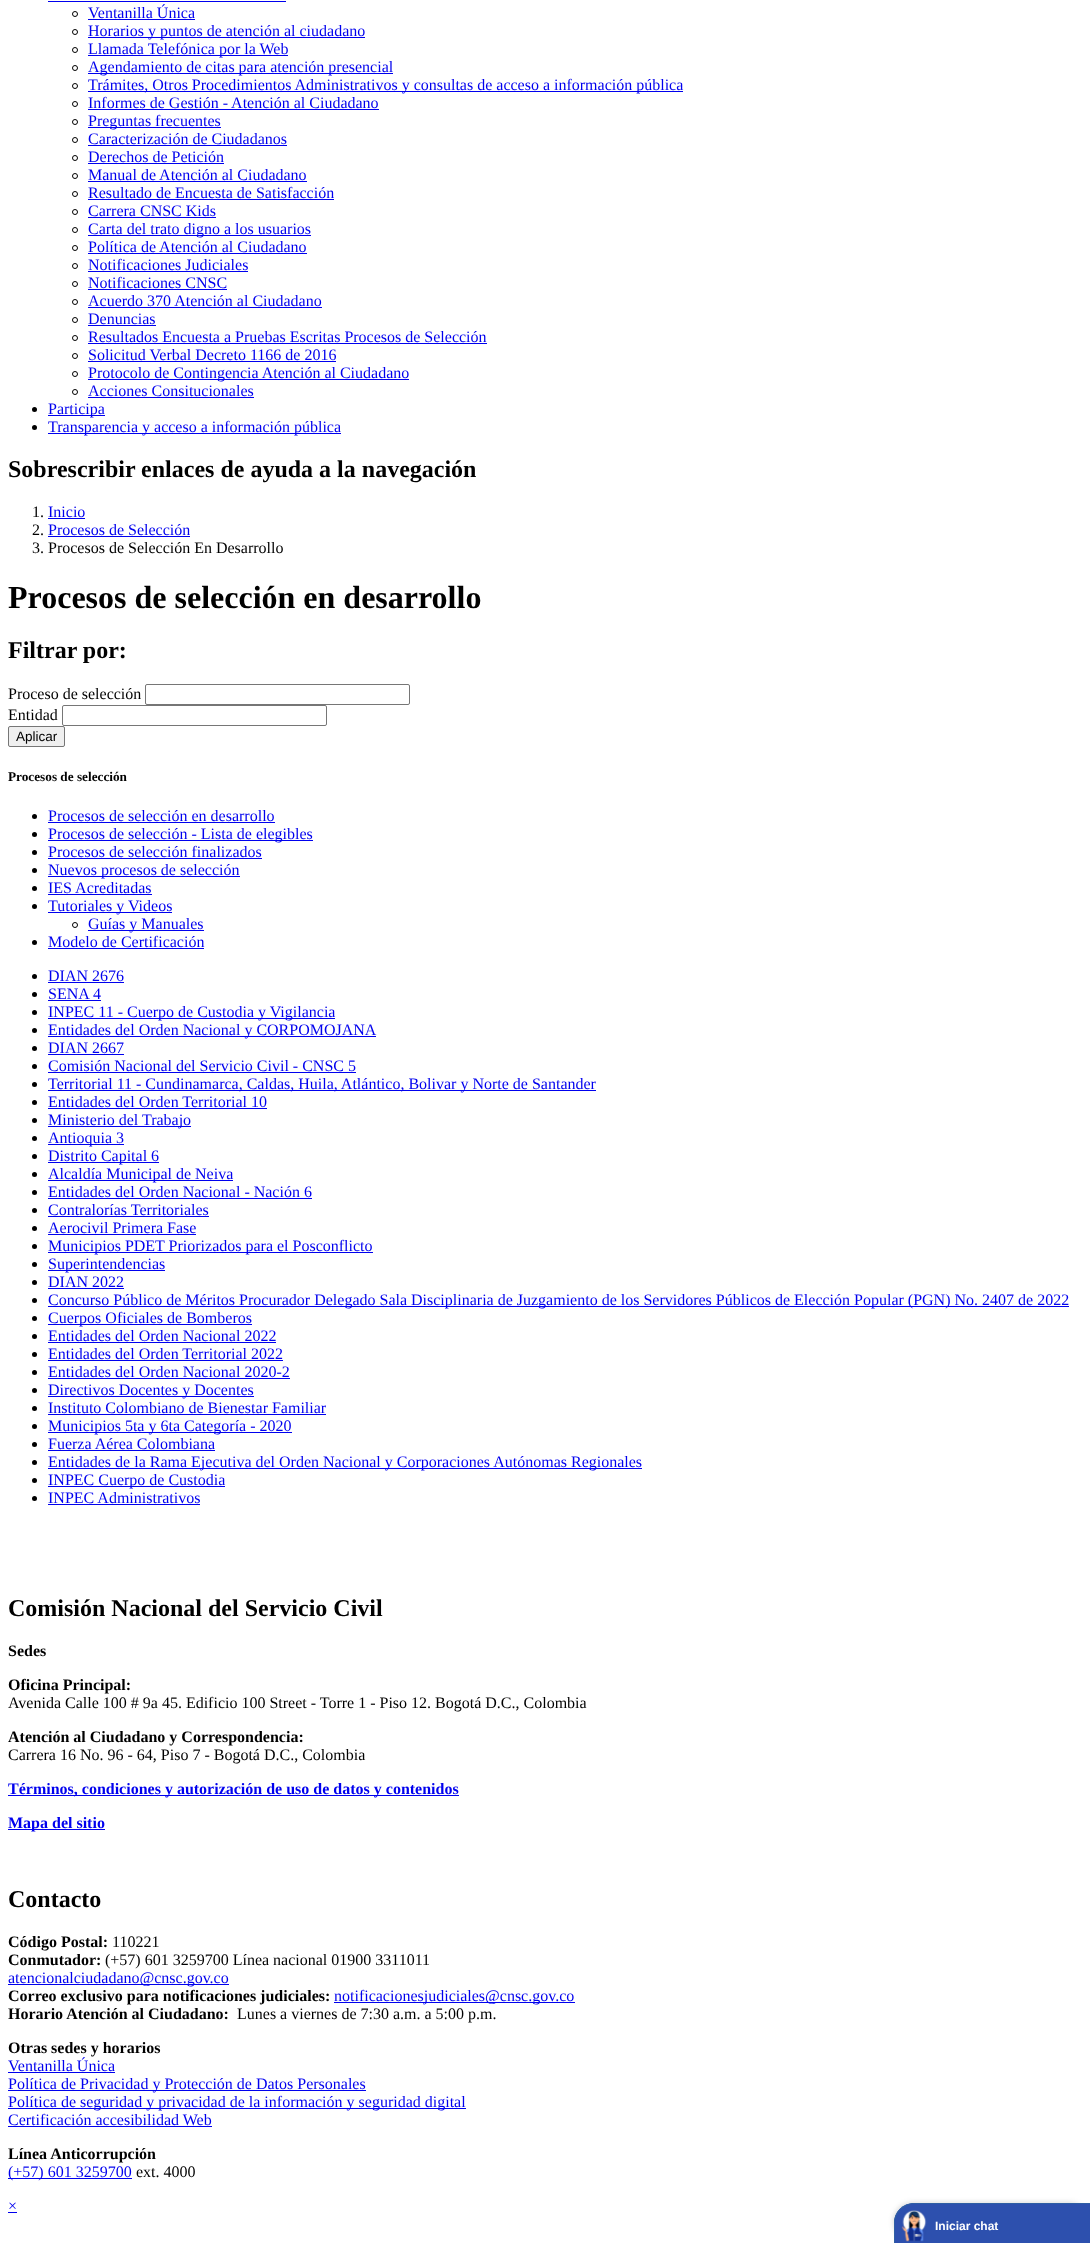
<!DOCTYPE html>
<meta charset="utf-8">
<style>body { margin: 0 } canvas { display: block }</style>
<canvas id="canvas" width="1090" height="2243"></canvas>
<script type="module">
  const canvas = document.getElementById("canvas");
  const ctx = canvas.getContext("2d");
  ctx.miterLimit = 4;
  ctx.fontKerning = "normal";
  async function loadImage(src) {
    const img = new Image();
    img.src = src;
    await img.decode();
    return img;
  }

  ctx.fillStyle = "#ffffff";
  ctx.fillRect(0, 0, 1090, 2243);
  ctx.fillStyle = "#0000ee";
  ctx.fillRect(48, 1, 238, 1);
  ctx.beginPath();
  ctx.arc(75, 14, 2.5, 0, Math.PI * 2);
  ctx.strokeStyle = "#000000";
  ctx.stroke();
  ctx.font = "16px Liberation Serif";
  ctx.fillText("Ventanilla Única", 88, 18);
  ctx.fillRect(88, 19, 107, 1);
  ctx.beginPath();
  ctx.arc(75, 32, 2.5, 0, Math.PI * 2);
  ctx.stroke();
  ctx.fillRect(88, 37, 277, 1);
  ctx.fillText("Horarios y puntos de atención al ciudadano", 88, 36);
  ctx.beginPath();
  ctx.arc(75, 50, 2.5, 0, Math.PI * 2);
  ctx.stroke();
  ctx.fillRect(88, 55, 200, 1);
  ctx.fillText("Llamada Telefónica por la Web", 88, 54);
  ctx.beginPath();
  ctx.arc(75, 68, 2.5, 0, Math.PI * 2);
  ctx.stroke();
  ctx.fillRect(88, 73, 305, 1);
  ctx.fillText("Agendamiento de citas para atención presencial", 88, 72);
  ctx.beginPath();
  ctx.arc(75, 86, 2.5, 0, Math.PI * 2);
  ctx.stroke();
  ctx.fillRect(88, 91, 595, 1);
  ctx.fillText("Trámites, Otros Procedimientos Administrativos y consultas de acceso a información pública", 88, 90);
  ctx.beginPath();
  ctx.arc(75, 104, 2.5, 0, Math.PI * 2);
  ctx.stroke();
  ctx.fillText("Informes de Gestión - Atención al Ciudadano", 88, 108);
  ctx.fillRect(88, 109, 291, 1);
  ctx.beginPath();
  ctx.arc(75, 122, 2.5, 0, Math.PI * 2);
  ctx.stroke();
  ctx.fillRect(88, 127, 133, 1);
  ctx.fillText("Preguntas frecuentes", 88, 126);
  ctx.beginPath();
  ctx.arc(75, 140, 2.5, 0, Math.PI * 2);
  ctx.stroke();
  ctx.fillText("Caracterización de Ciudadanos", 88, 144);
  ctx.fillRect(88, 145, 199, 1);
  ctx.beginPath();
  ctx.arc(75, 158, 2.5, 0, Math.PI * 2);
  ctx.stroke();
  ctx.fillText("Derechos de Petición", 88, 162);
  ctx.fillRect(88, 163, 136, 1);
  ctx.beginPath();
  ctx.arc(75, 176, 2.5, 0, Math.PI * 2);
  ctx.stroke();
  ctx.fillText("Manual de Atención al Ciudadano", 88, 180);
  ctx.fillRect(88, 181, 219, 1);
  ctx.beginPath();
  ctx.arc(75, 194, 2.5, 0, Math.PI * 2);
  ctx.stroke();
  ctx.fillText("Resultado de Encuesta de Satisfacción", 88, 198);
  ctx.fillRect(88, 199, 246, 1);
  ctx.beginPath();
  ctx.arc(75, 212, 2.5, 0, Math.PI * 2);
  ctx.stroke();
  ctx.fillText("Carrera CNSC Kids", 88, 216);
  ctx.fillRect(88, 217, 128, 1);
  ctx.beginPath();
  ctx.arc(75, 230, 2.5, 0, Math.PI * 2);
  ctx.stroke();
  ctx.fillRect(88, 235, 223, 1);
  ctx.fillText("Carta del trato digno a los usuarios", 88, 234);
  ctx.beginPath();
  ctx.arc(75, 248, 2.5, 0, Math.PI * 2);
  ctx.stroke();
  ctx.fillText("Política de Atención al Ciudadano", 88, 252);
  ctx.fillRect(88, 253, 219, 1);
  ctx.beginPath();
  ctx.arc(75, 266, 2.5, 0, Math.PI * 2);
  ctx.stroke();
  ctx.fillText("Notificaciones Judiciales", 88, 270);
  ctx.fillRect(88, 271, 160, 1);
  ctx.beginPath();
  ctx.arc(75, 284, 2.5, 0, Math.PI * 2);
  ctx.stroke();
  ctx.fillText("Notificaciones CNSC", 88, 288);
  ctx.fillRect(88, 289, 139, 1);
  ctx.beginPath();
  ctx.arc(75, 302, 2.5, 0, Math.PI * 2);
  ctx.stroke();
  ctx.fillText("Acuerdo 370 Atención al Ciudadano", 88, 306);
  ctx.fillRect(88, 307, 234, 1);
  ctx.beginPath();
  ctx.arc(75, 320, 2.5, 0, Math.PI * 2);
  ctx.stroke();
  ctx.fillText("Denuncias", 88, 324);
  ctx.fillRect(88, 325, 68, 1);
  ctx.beginPath();
  ctx.arc(75, 338, 2.5, 0, Math.PI * 2);
  ctx.stroke();
  ctx.fillText("Resultados Encuesta a Pruebas Escritas Procesos de Selección", 88, 342);
  ctx.fillRect(88, 343, 399, 1);
  ctx.beginPath();
  ctx.arc(75, 356, 2.5, 0, Math.PI * 2);
  ctx.stroke();
  ctx.fillText("Solicitud Verbal Decreto 1166 de 2016", 88, 360);
  ctx.fillRect(88, 361, 248, 1);
  ctx.beginPath();
  ctx.arc(75, 374, 2.5, 0, Math.PI * 2);
  ctx.stroke();
  ctx.fillRect(88, 379, 321, 1);
  ctx.fillText("Protocolo de Contingencia Atención al Ciudadano", 88, 378);
  ctx.beginPath();
  ctx.arc(75, 392, 2.5, 0, Math.PI * 2);
  ctx.stroke();
  ctx.fillText("Acciones Consitucionales", 88, 396);
  ctx.fillRect(88, 397, 166, 1);
  ctx.fillStyle = "#000000";
  ctx.beginPath();
  ctx.arc(34.5, 409.5, 2.5, 0, Math.PI * 2);
  ctx.fill();
  ctx.fillStyle = "#0000ee";
  ctx.fillRect(48, 415, 57, 1);
  ctx.fillText("Participa", 48, 414);
  ctx.fillStyle = "#000000";
  ctx.beginPath();
  ctx.arc(34.5, 427.5, 2.5, 0, Math.PI * 2);
  ctx.fill();
  ctx.fillStyle = "#0000ee";
  ctx.fillRect(48, 433, 293, 1);
  ctx.fillText("Transparencia y acceso a información pública", 48, 432);
  ctx.font = "bold 24px Liberation Serif";
  ctx.fillStyle = "#000000";
  ctx.fillText("Sobrescribir enlaces de ayuda a la navegación", 8, 477);
  ctx.font = "16px Liberation Serif";
  ctx.fillText("1.", 32, 517);
  ctx.fillStyle = "#0000ee";
  ctx.fillText("Inicio", 48, 517);
  ctx.fillRect(48, 518, 37, 1);
  ctx.fillStyle = "#000000";
  ctx.fillText("2.", 32, 535);
  ctx.fillStyle = "#0000ee";
  ctx.fillText("Procesos de Selección", 48, 535);
  ctx.fillRect(48, 536, 142, 1);
  ctx.fillStyle = "#000000";
  ctx.fillText("3. Procesos de Selección En Desarrollo", 32, 553);
  ctx.font = "bold 32px Liberation Serif";
  ctx.fillText("Procesos de selección en desarrollo", 8, 608);
  ctx.font = "bold 24px Liberation Serif";
  ctx.fillText("Filtrar por:", 8, 658);
  ctx.font = "16px Liberation Serif";
  ctx.fillText("Proceso de selección", 8, 699);
  ctx.beginPath();
  ctx.roundRect(145.5, 684.5, 264, 20, 1.5);
  ctx.strokeStyle = "#767676";
  ctx.stroke();
  ctx.fillText("Entidad", 8, 720);
  ctx.beginPath();
  ctx.roundRect(62.5, 705.5, 264, 20, 1.5);
  ctx.stroke();
  ctx.fillStyle = "#efefef";
  ctx.beginPath();
  ctx.roundRect(8.5, 726.5, 56, 20, 1.5);
  ctx.fill();
  ctx.stroke();
  ctx.font = "13.5px Liberation Sans";
  ctx.fillStyle = "#000000";
  ctx.fillText("Aplicar", 16, 741);
  ctx.font = "bold 13.25px Liberation Serif";
  ctx.fillText("Procesos de selección", 8, 781);
  ctx.beginPath();
  ctx.arc(34.5, 816.5, 2.5, 0, Math.PI * 2);
  ctx.fill();
  ctx.font = "16px Liberation Serif";
  ctx.fillStyle = "#0000ee";
  ctx.fillText("Procesos de selección en desarrollo", 48, 821);
  ctx.fillRect(48, 822, 227, 1);
  ctx.fillStyle = "#000000";
  ctx.beginPath();
  ctx.arc(34.5, 834.5, 2.5, 0, Math.PI * 2);
  ctx.fill();
  ctx.fillStyle = "#0000ee";
  ctx.fillRect(48, 840, 265, 1);
  ctx.fillText("Procesos de selección - Lista de elegibles", 48, 839);
  ctx.fillStyle = "#000000";
  ctx.beginPath();
  ctx.arc(34.5, 852.5, 2.5, 0, Math.PI * 2);
  ctx.fill();
  ctx.fillStyle = "#0000ee";
  ctx.fillText("Procesos de selección finalizados", 48, 857);
  ctx.fillRect(48, 858, 214, 1);
  ctx.fillStyle = "#000000";
  ctx.beginPath();
  ctx.arc(34.5, 870.5, 2.5, 0, Math.PI * 2);
  ctx.fill();
  ctx.fillStyle = "#0000ee";
  ctx.fillRect(48, 876, 192, 1);
  ctx.fillText("Nuevos procesos de selección", 48, 875);
  ctx.fillStyle = "#000000";
  ctx.beginPath();
  ctx.arc(34.5, 888.5, 2.5, 0, Math.PI * 2);
  ctx.fill();
  ctx.fillStyle = "#0000ee";
  ctx.fillText("IES Acreditadas", 48, 893);
  ctx.fillRect(48, 894, 104, 1);
  ctx.fillStyle = "#000000";
  ctx.beginPath();
  ctx.arc(34.5, 906.5, 2.5, 0, Math.PI * 2);
  ctx.fill();
  ctx.fillStyle = "#0000ee";
  ctx.fillRect(48, 912, 124, 1);
  ctx.fillText("Tutoriales y Videos", 48, 911);
  ctx.beginPath();
  ctx.arc(75, 925, 2.5, 0, Math.PI * 2);
  ctx.strokeStyle = "#000000";
  ctx.stroke();
  ctx.fillRect(88, 930, 116, 1);
  ctx.fillText("Guías y Manuales", 88, 929);
  ctx.fillStyle = "#000000";
  ctx.beginPath();
  ctx.arc(34.5, 942.5, 2.5, 0, Math.PI * 2);
  ctx.fill();
  ctx.fillStyle = "#0000ee";
  ctx.fillText("Modelo de Certificación", 48, 947);
  ctx.fillRect(48, 948, 156, 1);
  ctx.fillStyle = "#000000";
  ctx.beginPath();
  ctx.arc(34.5, 976.5, 2.5, 0, Math.PI * 2);
  ctx.fill();
  ctx.fillStyle = "#0000ee";
  ctx.fillText("DIAN 2676", 48, 981);
  ctx.fillRect(48, 982, 76, 1);
  ctx.fillStyle = "#000000";
  ctx.beginPath();
  ctx.arc(34.5, 994.5, 2.5, 0, Math.PI * 2);
  ctx.fill();
  ctx.fillStyle = "#0000ee";
  ctx.fillText("SENA 4", 48, 999);
  ctx.fillRect(48, 1000, 53, 1);
  ctx.fillStyle = "#000000";
  ctx.beginPath();
  ctx.arc(34.5, 1012.5, 2.5, 0, Math.PI * 2);
  ctx.fill();
  ctx.fillStyle = "#0000ee";
  ctx.fillRect(48, 1018, 287, 1);
  ctx.fillText("INPEC 11 - Cuerpo de Custodia y Vigilancia", 48, 1017);
  ctx.fillStyle = "#000000";
  ctx.beginPath();
  ctx.arc(34.5, 1030.5, 2.5, 0, Math.PI * 2);
  ctx.fill();
  ctx.fillStyle = "#0000ee";
  ctx.fillRect(48, 1036, 328, 1);
  ctx.fillText("Entidades del Orden Nacional y CORPOMOJANA", 48, 1035);
  ctx.fillStyle = "#000000";
  ctx.beginPath();
  ctx.arc(34.5, 1048.5, 2.5, 0, Math.PI * 2);
  ctx.fill();
  ctx.fillStyle = "#0000ee";
  ctx.fillText("DIAN 2667", 48, 1053);
  ctx.fillRect(48, 1054, 76, 1);
  ctx.fillStyle = "#000000";
  ctx.beginPath();
  ctx.arc(34.5, 1066.5, 2.5, 0, Math.PI * 2);
  ctx.fill();
  ctx.fillStyle = "#0000ee";
  ctx.fillText("Comisión Nacional del Servicio Civil - CNSC 5", 48, 1071);
  ctx.fillRect(48, 1072, 308, 1);
  ctx.fillStyle = "#000000";
  ctx.beginPath();
  ctx.arc(34.5, 1084.5, 2.5, 0, Math.PI * 2);
  ctx.fill();
  ctx.fillStyle = "#0000ee";
  ctx.fillRect(48, 1090, 548, 1);
  ctx.fillText("Territorial 11 - Cundinamarca, Caldas, Huila, Atlántico, Bolivar y Norte de Santander", 48, 1089);
  ctx.fillStyle = "#000000";
  ctx.beginPath();
  ctx.arc(34.5, 1102.5, 2.5, 0, Math.PI * 2);
  ctx.fill();
  ctx.fillStyle = "#0000ee";
  ctx.fillText("Entidades del Orden Territorial 10", 48, 1107);
  ctx.fillRect(48, 1108, 219, 1);
  ctx.fillStyle = "#000000";
  ctx.beginPath();
  ctx.arc(34.5, 1120.5, 2.5, 0, Math.PI * 2);
  ctx.fill();
  ctx.fillStyle = "#0000ee";
  ctx.fillRect(48, 1126, 143, 1);
  ctx.fillText("Ministerio del Trabajo", 48, 1125);
  ctx.fillStyle = "#000000";
  ctx.beginPath();
  ctx.arc(34.5, 1138.5, 2.5, 0, Math.PI * 2);
  ctx.fill();
  ctx.fillStyle = "#0000ee";
  ctx.fillRect(48, 1144, 76, 1);
  ctx.fillText("Antioquia 3", 48, 1143);
  ctx.fillStyle = "#000000";
  ctx.beginPath();
  ctx.arc(34.5, 1156.5, 2.5, 0, Math.PI * 2);
  ctx.fill();
  ctx.fillStyle = "#0000ee";
  ctx.fillRect(48, 1162, 111, 1);
  ctx.fillText("Distrito Capital 6", 48, 1161);
  ctx.fillStyle = "#000000";
  ctx.beginPath();
  ctx.arc(34.5, 1174.5, 2.5, 0, Math.PI * 2);
  ctx.fill();
  ctx.fillStyle = "#0000ee";
  ctx.fillRect(48, 1180, 185, 1);
  ctx.fillText("Alcaldía Municipal de Neiva", 48, 1179);
  ctx.fillStyle = "#000000";
  ctx.beginPath();
  ctx.arc(34.5, 1192.5, 2.5, 0, Math.PI * 2);
  ctx.fill();
  ctx.fillStyle = "#0000ee";
  ctx.fillText("Entidades del Orden Nacional - Nación 6", 48, 1197);
  ctx.fillRect(48, 1198, 264, 1);
  ctx.fillStyle = "#000000";
  ctx.beginPath();
  ctx.arc(34.5, 1210.5, 2.5, 0, Math.PI * 2);
  ctx.fill();
  ctx.fillStyle = "#0000ee";
  ctx.fillText("Contralorías Territoriales", 48, 1215);
  ctx.fillRect(48, 1216, 161, 1);
  ctx.fillStyle = "#000000";
  ctx.beginPath();
  ctx.arc(34.5, 1228.5, 2.5, 0, Math.PI * 2);
  ctx.fill();
  ctx.fillStyle = "#0000ee";
  ctx.fillText("Aerocivil Primera Fase", 48, 1233);
  ctx.fillRect(48, 1234, 148, 1);
  ctx.fillStyle = "#000000";
  ctx.beginPath();
  ctx.arc(34.5, 1246.5, 2.5, 0, Math.PI * 2);
  ctx.fill();
  ctx.fillStyle = "#0000ee";
  ctx.fillRect(48, 1252, 325, 1);
  ctx.fillText("Municipios PDET Priorizados para el Posconflicto", 48, 1251);
  ctx.fillStyle = "#000000";
  ctx.beginPath();
  ctx.arc(34.5, 1264.5, 2.5, 0, Math.PI * 2);
  ctx.fill();
  ctx.fillStyle = "#0000ee";
  ctx.fillRect(48, 1270, 117, 1);
  ctx.fillText("Superintendencias", 48, 1269);
  ctx.fillStyle = "#000000";
  ctx.beginPath();
  ctx.arc(34.5, 1282.5, 2.5, 0, Math.PI * 2);
  ctx.fill();
  ctx.fillStyle = "#0000ee";
  ctx.fillText("DIAN 2022", 48, 1287);
  ctx.fillRect(48, 1288, 76, 1);
  ctx.fillStyle = "#000000";
  ctx.beginPath();
  ctx.arc(34.5, 1300.5, 2.5, 0, Math.PI * 2);
  ctx.fill();
  ctx.fillStyle = "#0000ee";
  ctx.fillRect(48, 1306, 1021, 1);
  ctx.fillText("Concurso Público de Méritos Procurador Delegado Sala Disciplinaria de Juzgamiento de los Servidores Públicos de Elección Popular (PGN) No. 2407 de 2022", 48, 1305);
  ctx.fillStyle = "#000000";
  ctx.beginPath();
  ctx.arc(34.5, 1318.5, 2.5, 0, Math.PI * 2);
  ctx.fill();
  ctx.fillStyle = "#0000ee";
  ctx.fillRect(48, 1324, 204, 1);
  ctx.fillText("Cuerpos Oficiales de Bomberos", 48, 1323);
  ctx.fillStyle = "#000000";
  ctx.beginPath();
  ctx.arc(34.5, 1336.5, 2.5, 0, Math.PI * 2);
  ctx.fill();
  ctx.fillStyle = "#0000ee";
  ctx.fillText("Entidades del Orden Nacional 2022", 48, 1341);
  ctx.fillRect(48, 1342, 228, 1);
  ctx.fillStyle = "#000000";
  ctx.beginPath();
  ctx.arc(34.5, 1354.5, 2.5, 0, Math.PI * 2);
  ctx.fill();
  ctx.fillStyle = "#0000ee";
  ctx.fillText("Entidades del Orden Territorial 2022", 48, 1359);
  ctx.fillRect(48, 1360, 235, 1);
  ctx.fillStyle = "#000000";
  ctx.beginPath();
  ctx.arc(34.5, 1372.5, 2.5, 0, Math.PI * 2);
  ctx.fill();
  ctx.fillStyle = "#0000ee";
  ctx.fillText("Entidades del Orden Nacional 2020-2", 48, 1377);
  ctx.fillRect(48, 1378, 242, 1);
  ctx.fillStyle = "#000000";
  ctx.beginPath();
  ctx.arc(34.5, 1390.5, 2.5, 0, Math.PI * 2);
  ctx.fill();
  ctx.fillStyle = "#0000ee";
  ctx.fillRect(48, 1396, 206, 1);
  ctx.fillText("Directivos Docentes y Docentes", 48, 1395);
  ctx.fillStyle = "#000000";
  ctx.beginPath();
  ctx.arc(34.5, 1408.5, 2.5, 0, Math.PI * 2);
  ctx.fill();
  ctx.fillStyle = "#0000ee";
  ctx.fillText("Instituto Colombiano de Bienestar Familiar", 48, 1413);
  ctx.fillRect(48, 1414, 278, 1);
  ctx.fillStyle = "#000000";
  ctx.beginPath();
  ctx.arc(34.5, 1426.5, 2.5, 0, Math.PI * 2);
  ctx.fill();
  ctx.fillStyle = "#0000ee";
  ctx.fillRect(48, 1432, 244, 1);
  ctx.fillText("Municipios 5ta y 6ta Categoría - 2020", 48, 1431);
  ctx.fillStyle = "#000000";
  ctx.beginPath();
  ctx.arc(34.5, 1444.5, 2.5, 0, Math.PI * 2);
  ctx.fill();
  ctx.fillStyle = "#0000ee";
  ctx.fillText("Fuerza Aérea Colombiana", 48, 1449);
  ctx.fillRect(48, 1450, 167, 1);
  ctx.fillStyle = "#000000";
  ctx.beginPath();
  ctx.arc(34.5, 1462.5, 2.5, 0, Math.PI * 2);
  ctx.fill();
  ctx.fillStyle = "#0000ee";
  ctx.fillRect(48, 1468, 594, 1);
  ctx.fillText("Entidades de la Rama Ejecutiva del Orden Nacional y Corporaciones Autónomas Regionales", 48, 1467);
  ctx.fillStyle = "#000000";
  ctx.beginPath();
  ctx.arc(34.5, 1480.5, 2.5, 0, Math.PI * 2);
  ctx.fill();
  ctx.fillStyle = "#0000ee";
  ctx.fillRect(48, 1486, 177, 1);
  ctx.fillText("INPEC Cuerpo de Custodia", 48, 1485);
  ctx.fillStyle = "#000000";
  ctx.beginPath();
  ctx.arc(34.5, 1498.5, 2.5, 0, Math.PI * 2);
  ctx.fill();
  ctx.fillStyle = "#0000ee";
  ctx.fillText("INPEC Administrativos", 48, 1503);
  ctx.fillRect(48, 1504, 152, 1);
  ctx.font = "bold 24px Liberation Serif";
  ctx.fillStyle = "#000000";
  ctx.fillText("Comisión Nacional del Servicio Civil", 8, 1616);
  ctx.font = "bold 16px Liberation Serif";
  ctx.fillText("Sedes", 8, 1656);
  ctx.fillText("Oficina Principal:", 8, 1690);
  ctx.font = "16px Liberation Serif";
  ctx.fillText("Avenida Calle 100 # 9a 45. Edificio 100 Street - Torre 1 - Piso 12. Bogotá D.C., Colombia", 8, 1708);
  ctx.font = "bold 16px Liberation Serif";
  ctx.fillText("Atención al Ciudadano y Correspondencia:", 8, 1742);
  ctx.font = "16px Liberation Serif";
  ctx.fillText("Carrera 16 No. 96 - 64, Piso 7 - Bogotá D.C., Colombia", 8, 1760);
  ctx.fillStyle = "#0000ee";
  ctx.fillRect(8, 1795, 451, 1);
  ctx.font = "bold 16px Liberation Serif";
  ctx.fillText("Términos, condiciones y autorización de uso de datos y contenidos", 8, 1794);
  ctx.fillRect(8, 1829, 97, 1);
  ctx.fillText("Mapa del sitio", 8, 1828);
  ctx.font = "bold 24px Liberation Serif";
  ctx.fillStyle = "#000000";
  ctx.fillText("Contacto", 8, 1907);
  ctx.font = "bold 16px Liberation Serif";
  ctx.fillText("Código Postal:", 8, 1947);
  ctx.font = "16px Liberation Serif";
  ctx.fillText("110221", 112, 1947);
  ctx.font = "bold 16px Liberation Serif";
  ctx.fillText("Conmutador:", 8, 1965);
  ctx.font = "16px Liberation Serif";
  ctx.fillText("(+57) 601 3259700 Línea nacional 01900 3311011", 105, 1965);
  ctx.fillStyle = "#0000ee";
  ctx.fillRect(8, 1984, 221, 1);
  ctx.fillText("atencionalciudadano@cnsc.gov.co", 8, 1983);
  ctx.font = "bold 16px Liberation Serif";
  ctx.fillStyle = "#000000";
  ctx.fillText("Correo exclusivo para notificaciones judiciales:", 8, 2001);
  ctx.fillStyle = "#0000ee";
  ctx.fillRect(334, 2002, 241, 1);
  ctx.font = "16px Liberation Serif";
  ctx.fillText("notificacionesjudiciales@cnsc.gov.co", 334, 2001);
  ctx.font = "bold 16px Liberation Serif";
  ctx.fillStyle = "#000000";
  ctx.fillText("Horario Atención al Ciudadano:", 8, 2019);
  ctx.font = "16px Liberation Serif";
  ctx.fillText("Lunes a viernes de 7:30 a.m. a 5:00 p.m.", 237, 2019);
  ctx.font = "bold 16px Liberation Serif";
  ctx.fillText("Otras sedes y horarios", 8, 2053);
  ctx.font = "16px Liberation Serif";
  ctx.fillStyle = "#0000ee";
  ctx.fillText("Ventanilla Única", 8, 2071);
  ctx.fillRect(8, 2072, 107, 1);
  ctx.fillRect(8, 2090, 358, 1);
  ctx.fillText("Política de Privacidad y Protección de Datos Personales", 8, 2089);
  ctx.fillRect(8, 2108, 458, 1);
  ctx.fillText("Política de seguridad y privacidad de la información y seguridad digital", 8, 2107);
  ctx.fillText("Certificación accesibilidad Web", 8, 2125);
  ctx.fillRect(8, 2126, 204, 1);
  ctx.font = "bold 16px Liberation Serif";
  ctx.fillStyle = "#000000";
  ctx.fillText("Línea Anticorrupción", 8, 2159);
  ctx.fillStyle = "#0000ee";
  ctx.fillRect(8, 2178, 124, 1);
  ctx.font = "16px Liberation Serif";
  ctx.fillText("(+57) 601 3259700", 8, 2177);
  ctx.fillStyle = "#000000";
  ctx.fillText("ext. 4000", 136, 2177);
  ctx.fillStyle = "#0000ee";
  ctx.fillText("×", 8, 2211);
  ctx.fillRect(8, 2212, 9, 1);
  ctx.fillStyle = "rgba(50, 50, 50, 0.17)";
  ctx.filter = "blur(2.5px)";
  ctx.beginPath();
  ctx.roundRect(893, 2202, 196, 40, 20);
  ctx.fill();
  ctx.filter = "none";
  ctx.fillStyle = "#2d50ae";
  ctx.beginPath();
  ctx.roundRect(894, 2203, 196, 40, [20, 0, 0, 0]);
  ctx.fill();
  ctx.fillStyle = "#2f5fa4";
  ctx.beginPath();
  ctx.moveTo(914, 2203);
  ctx.lineTo(1090, 2203);
  ctx.lineTo(1090, 2243);
  ctx.lineTo(894, 2243);
  ctx.lineTo(894, 2223);
  ctx.bezierCurveTo(894, 2212, 903, 2203, 914, 2203);
  ctx.closePath();
  ctx.moveTo(914, 2204);
  ctx.lineTo(1090, 2204);
  ctx.lineTo(1090, 2243);
  ctx.lineTo(895, 2243);
  ctx.lineTo(895, 2223);
  ctx.bezierCurveTo(895, 2213, 904, 2204, 914, 2204);
  ctx.closePath();
  ctx.fill("evenodd");
  ctx.drawImage(await loadImage("img1.png"), 900, 2209, 27, 33);
  ctx.font = "bold 12px Liberation Sans";
  ctx.fillStyle = "#ffffff";
  ctx.fillText("Iniciar chat", 935, 2230);
</script>
